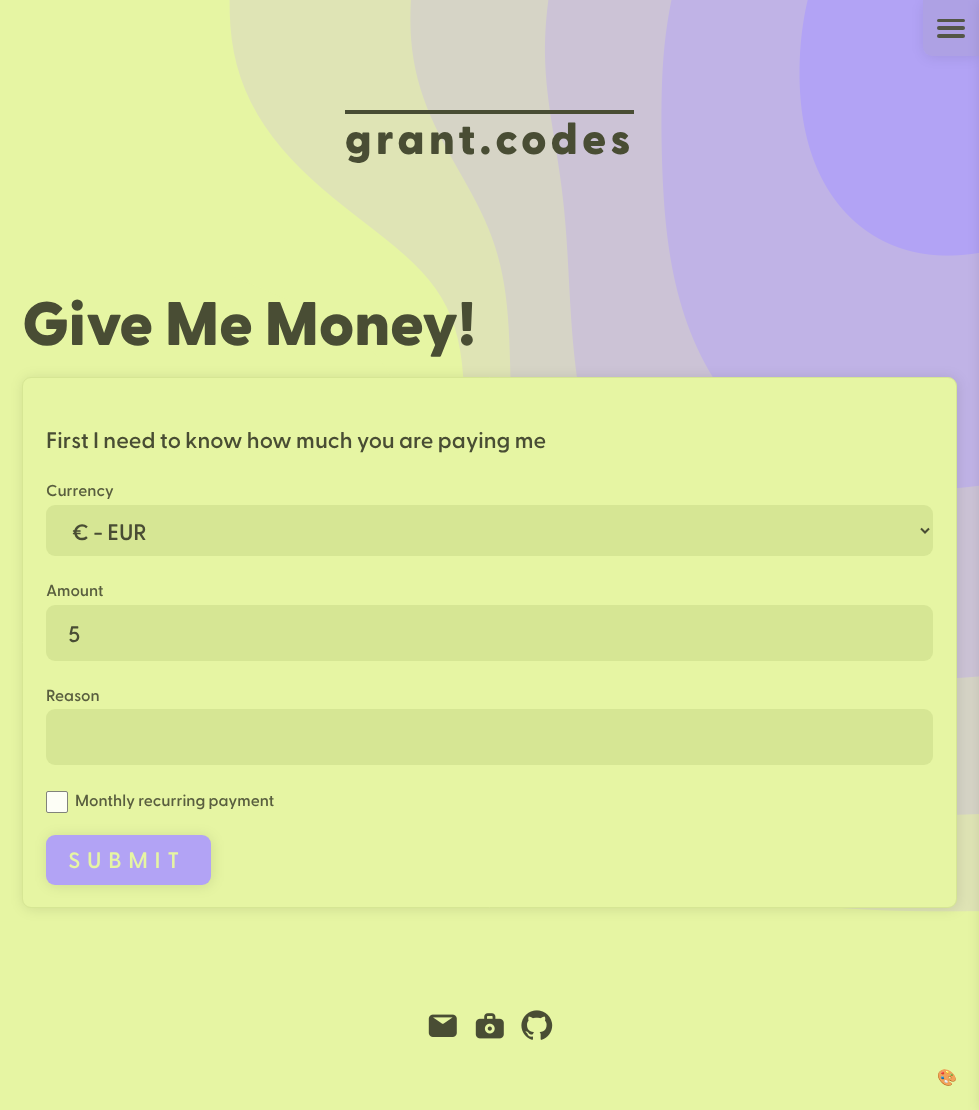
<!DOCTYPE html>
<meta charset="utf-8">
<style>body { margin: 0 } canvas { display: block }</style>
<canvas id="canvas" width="979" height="1110"></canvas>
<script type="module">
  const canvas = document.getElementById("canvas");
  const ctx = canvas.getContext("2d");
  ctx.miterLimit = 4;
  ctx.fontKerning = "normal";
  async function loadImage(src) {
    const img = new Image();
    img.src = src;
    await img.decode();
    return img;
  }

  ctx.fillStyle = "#e6f5a3";
  ctx.fillRect(0, 0, 979, 1110);
  ctx.drawImage(await loadImage("img1.png"), 229, 0, 750, 912);
  ctx.save();
  ctx.beginPath();
  ctx.moveTo(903, 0);
  ctx.lineTo(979, 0);
  ctx.lineTo(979, 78);
  ctx.lineTo(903, 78);
  ctx.closePath();
  ctx.moveTo(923, 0);
  ctx.lineTo(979, 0);
  ctx.lineTo(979, 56);
  ctx.lineTo(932, 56);
  ctx.bezierCurveTo(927, 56, 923, 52, 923, 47);
  ctx.closePath();
  ctx.clip("evenodd");
  ctx.fillStyle = "rgba(0, 0, 0, 0.09)";
  ctx.filter = "blur(6.5px)";
  ctx.beginPath();
  ctx.roundRect(924, 1, 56, 56, 9);
  ctx.fill();
  ctx.filter = "none";
  ctx.restore();
  ctx.fillStyle = "rgba(0, 0, 0, 0.1)";
  ctx.filter = "blur(6.5px)";
  ctx.beginPath();
  ctx.rect(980, 1, 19, 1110);
  ctx.fill();
  ctx.filter = "none";
  ctx.fillStyle = "rgba(130, 146, 70, 0.09)";
  ctx.beginPath();
  ctx.roundRect(923, 0, 56, 56, [0, 0, 0, 9]);
  ctx.fill();
  ctx.fillStyle = "#535647";
  ctx.beginPath();
  ctx.roundRect(937, 26, 28, 4, 2);
  ctx.fill();
  ctx.beginPath();
  ctx.roundRect(937, 34, 28, 4, 2);
  ctx.fill();
  ctx.beginPath();
  ctx.roundRect(937, 19, 28, 3, 1.5);
  ctx.fill();
  ctx.letterSpacing = "4.4px";
  ctx.font = "900 44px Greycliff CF";
  ctx.fillStyle = "#494d34";
  ctx.fillText("grant.codes", 345, 154);
  ctx.fillRect(345, 110, 289, 4);
  ctx.letterSpacing = "0px";
  ctx.font = "900 61.5px Greycliff CF";
  ctx.fillText("Give Me Money!", 22, 345);
  ctx.fillStyle = "rgba(0, 0, 0, 0.1)";
  ctx.filter = "blur(6.5px)";
  ctx.beginPath();
  ctx.roundRect(23, 378, 935, 531, 9);
  ctx.fill();
  ctx.filter = "none";
  ctx.fillStyle = "#e6f5a3";
  ctx.beginPath();
  ctx.roundRect(22.5, 377.5, 934, 530, 8.5);
  ctx.fill();
  ctx.strokeStyle = "#d6e694";
  ctx.stroke();
  ctx.font = "600 22.4px Greycliff CF";
  ctx.fillStyle = "#494d34";
  ctx.fillText("First I need to know how much you are paying me", 46, 448);
  ctx.font = "600 16px Greycliff CF";
  ctx.fillStyle = "#595e3f";
  ctx.fillText("Currency", 46, 496);
  ctx.fillStyle = "#d6e694";
  ctx.beginPath();
  ctx.roundRect(46, 505, 887, 51, 9);
  ctx.fill();
  ctx.beginPath();
  ctx.moveTo(921, 528.5);
  ctx.lineTo(925, 532.5);
  ctx.lineTo(929, 528.5);
  ctx.strokeStyle = "#494d34";
  ctx.lineWidth = 2;
  ctx.stroke();
  ctx.font = "600 22.4px Greycliff CF";
  ctx.fillStyle = "#494d34";
  ctx.fillText("€ - EUR", 72, 540);
  ctx.font = "600 16px Greycliff CF";
  ctx.fillStyle = "#595e3f";
  ctx.fillText("Amount", 46, 596);
  ctx.fillStyle = "#d6e694";
  ctx.beginPath();
  ctx.roundRect(46, 605, 887, 56, 9);
  ctx.fill();
  ctx.font = "600 22.4px Greycliff CF";
  ctx.fillStyle = "#494d34";
  ctx.fillText("5", 68, 642);
  ctx.font = "600 16px Greycliff CF";
  ctx.fillStyle = "#595e3f";
  ctx.fillText("Reason", 46, 701);
  ctx.fillStyle = "#d6e694";
  ctx.beginPath();
  ctx.roundRect(46, 709, 887, 56, 9);
  ctx.fill();
  ctx.fillStyle = "#fdfef6";
  ctx.beginPath();
  ctx.roundRect(46.5, 791.5, 21, 21, 1.5);
  ctx.fill();
  ctx.strokeStyle = "#81837b";
  ctx.lineWidth = 1;
  ctx.stroke();
  ctx.fillStyle = "#595e3f";
  ctx.fillText("Monthly recurring payment", 75, 806);
  ctx.fillStyle = "rgba(0, 0, 0, 0.1)";
  ctx.filter = "blur(6.5px)";
  ctx.beginPath();
  ctx.roundRect(47, 836, 165, 50, 9);
  ctx.fill();
  ctx.filter = "none";
  ctx.fillStyle = "#b2a3f5";
  ctx.beginPath();
  ctx.roundRect(46, 835, 165, 50, 9);
  ctx.fill();
  ctx.letterSpacing = "6.75px";
  ctx.font = "600 22.4px Greycliff CF";
  ctx.fillStyle = "#e6f5a3";
  ctx.fillText("SUBMIT", 68, 868);
  ctx.drawImage(await loadImage("img2.png"), 428, 1014, 29, 23);
  ctx.drawImage(await loadImage("img3.png"), 475, 1013, 29, 26);
  ctx.drawImage(await loadImage("img4.png"), 521, 1010, 32, 30);
  ctx.letterSpacing = "0px";
  ctx.font = "bold 16px Noto Color Emoji";
  ctx.fillStyle = "#a7b277";
  ctx.fillText("🎨", 937, 1083);
</script>
